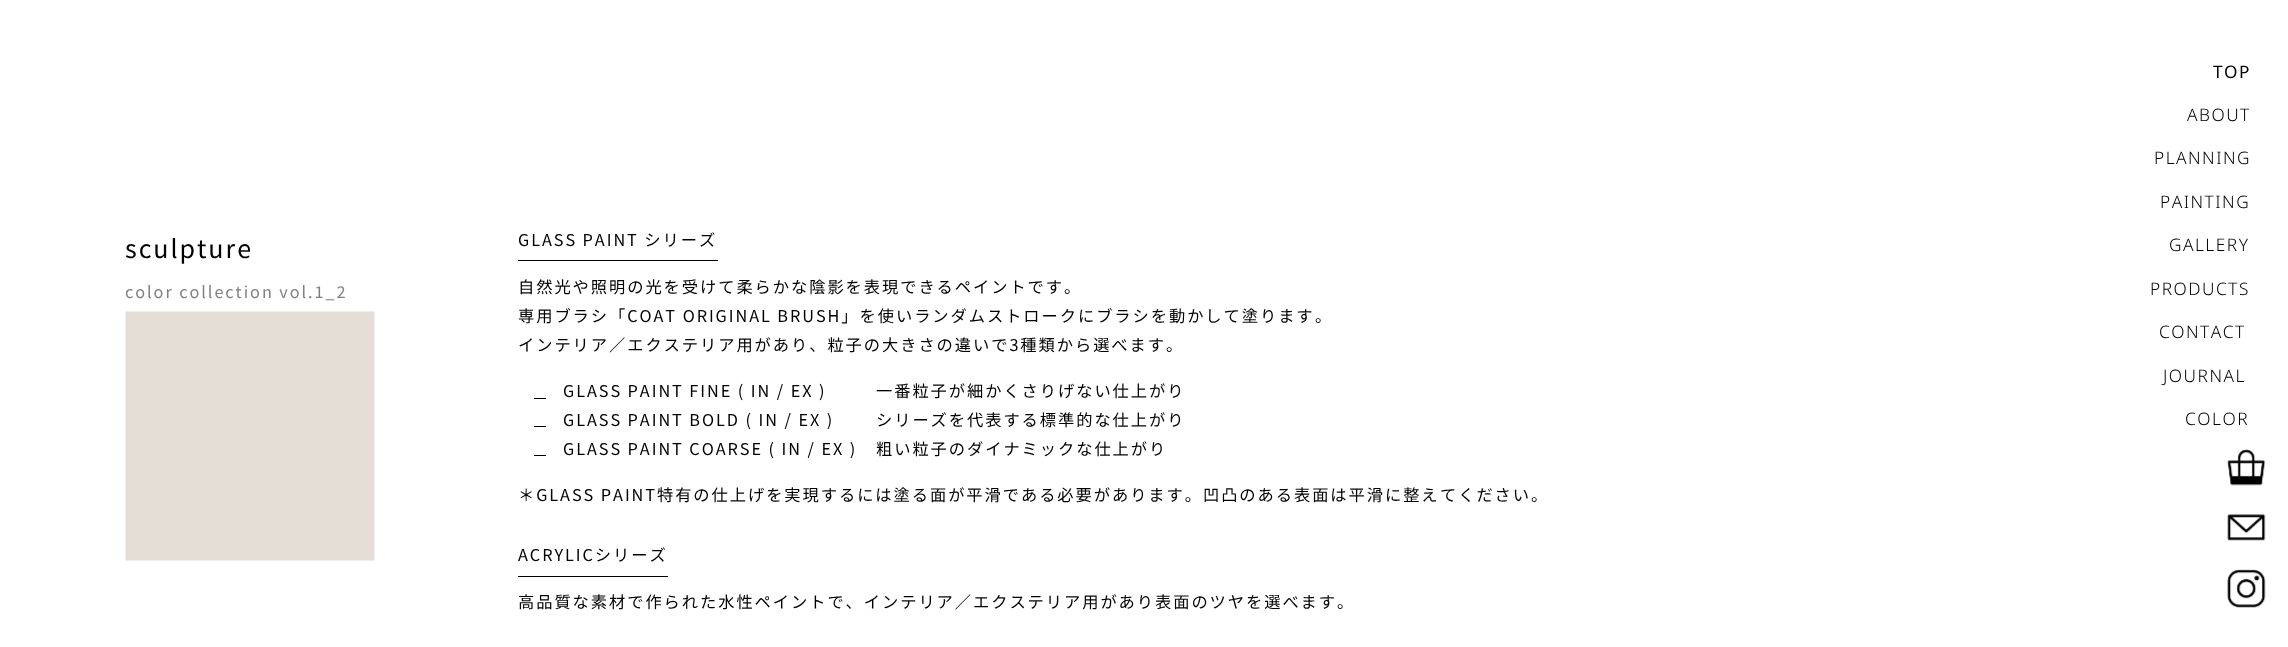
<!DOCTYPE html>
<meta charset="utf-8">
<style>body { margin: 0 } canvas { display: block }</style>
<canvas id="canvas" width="2288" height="647"></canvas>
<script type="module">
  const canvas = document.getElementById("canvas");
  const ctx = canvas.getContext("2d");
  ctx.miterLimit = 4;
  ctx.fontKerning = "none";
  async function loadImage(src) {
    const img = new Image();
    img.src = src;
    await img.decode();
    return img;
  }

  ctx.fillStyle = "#ffffff";
  ctx.fillRect(0, 0, 2288, 647);
  ctx.letterSpacing = "1.95px";
  ctx.font = "100 25px Noto Sans JP";
  ctx.fillStyle = "#000000";
  ctx.fillText("sculpture", 125, 258);
  ctx.font = "100 16.25px Noto Sans JP";
  ctx.fillStyle = "#808080";
  ctx.fillText("color collection vol.1_2", 125, 298);
  ctx.fillStyle = "#e5ded7";
  ctx.beginPath();
  ctx.rect(125.5, 311.5, 249, 249);
  ctx.fill();
  ctx.strokeStyle = "#eeeeee";
  ctx.stroke();
  ctx.fillStyle = "#000000";
  ctx.fillRect(518, 260, 200, 1);
  ctx.fillText("GLASS PAINT シリーズ", 518, 246);
  ctx.fillText("自然光や照明の光を受けて柔らかな陰影を表現できるペイントです。", 518, 293);
  ctx.fillText("専用ブラシ「COAT ORIGINAL BRUSH」を使いランダムストロークにブラシを動かして塗ります", 518, 322);
  ctx.fillText("。", 1315, 322);
  ctx.fillText("インテリア／エクステリア用があり、粒子の大きさの違いで3種類から選べます。", 518, 351);
  ctx.fillRect(534, 398, 12, 1);
  ctx.fillText("GLASS PAINT FINE ( IN / EX )", 563, 397);
  ctx.fillText("一番粒子が細かくさりげない仕上がり", 876, 397);
  ctx.fillRect(534, 426, 12, 1);
  ctx.fillText("GLASS PAINT BOLD ( IN / EX )", 563, 426);
  ctx.fillText("シリーズを代表する標準的な仕上がり", 876, 426);
  ctx.fillRect(534, 455, 12, 1);
  ctx.fillText("GLASS PAINT COARSE ( IN / EX )", 563, 455);
  ctx.fillText("粗い粒子のダイナミックな仕上がり", 876, 455);
  ctx.fillText("＊GLASS PAINT特有の仕上げを実現するには塗る面が平滑である必要があります。凹凸のある表面は平滑に整え", 518, 501);
  ctx.fillText("てください。", 1440, 501);
  ctx.fillRect(518, 576, 150, 1);
  ctx.fillText("ACRYLICシリーズ", 518, 561);
  ctx.fillText("高品質な素材で作られた水性ペイントで、インテリア／エクステリア用があり表面のツヤを選べます。", 518, 608);
  ctx.letterSpacing = "1.5px";
  ctx.font = "17.25px Noto Sans";
  ctx.fillText("TOP", 2213, 78);
  ctx.font = "300 17.25px Noto Sans";
  ctx.fillText("ABOUT", 2187, 121);
  ctx.fillText("PLANNING", 2154, 164);
  ctx.fillText("PAINTING", 2160, 208);
  ctx.fillText("GALLERY", 2169, 251);
  ctx.fillText("PRODUCTS", 2150, 295);
  ctx.fillText("CONTACT", 2159, 338);
  ctx.fillText("JOURNAL", 2163, 382);
  ctx.fillText("COLOR", 2185, 425);
  ctx.drawImage(await loadImage("img1.png"), 2227, 449, 39, 37);
  ctx.drawImage(await loadImage("img2.png"), 2227, 514, 39, 27);
  ctx.drawImage(await loadImage("img3.png"), 2227, 569, 39, 39);
</script>
